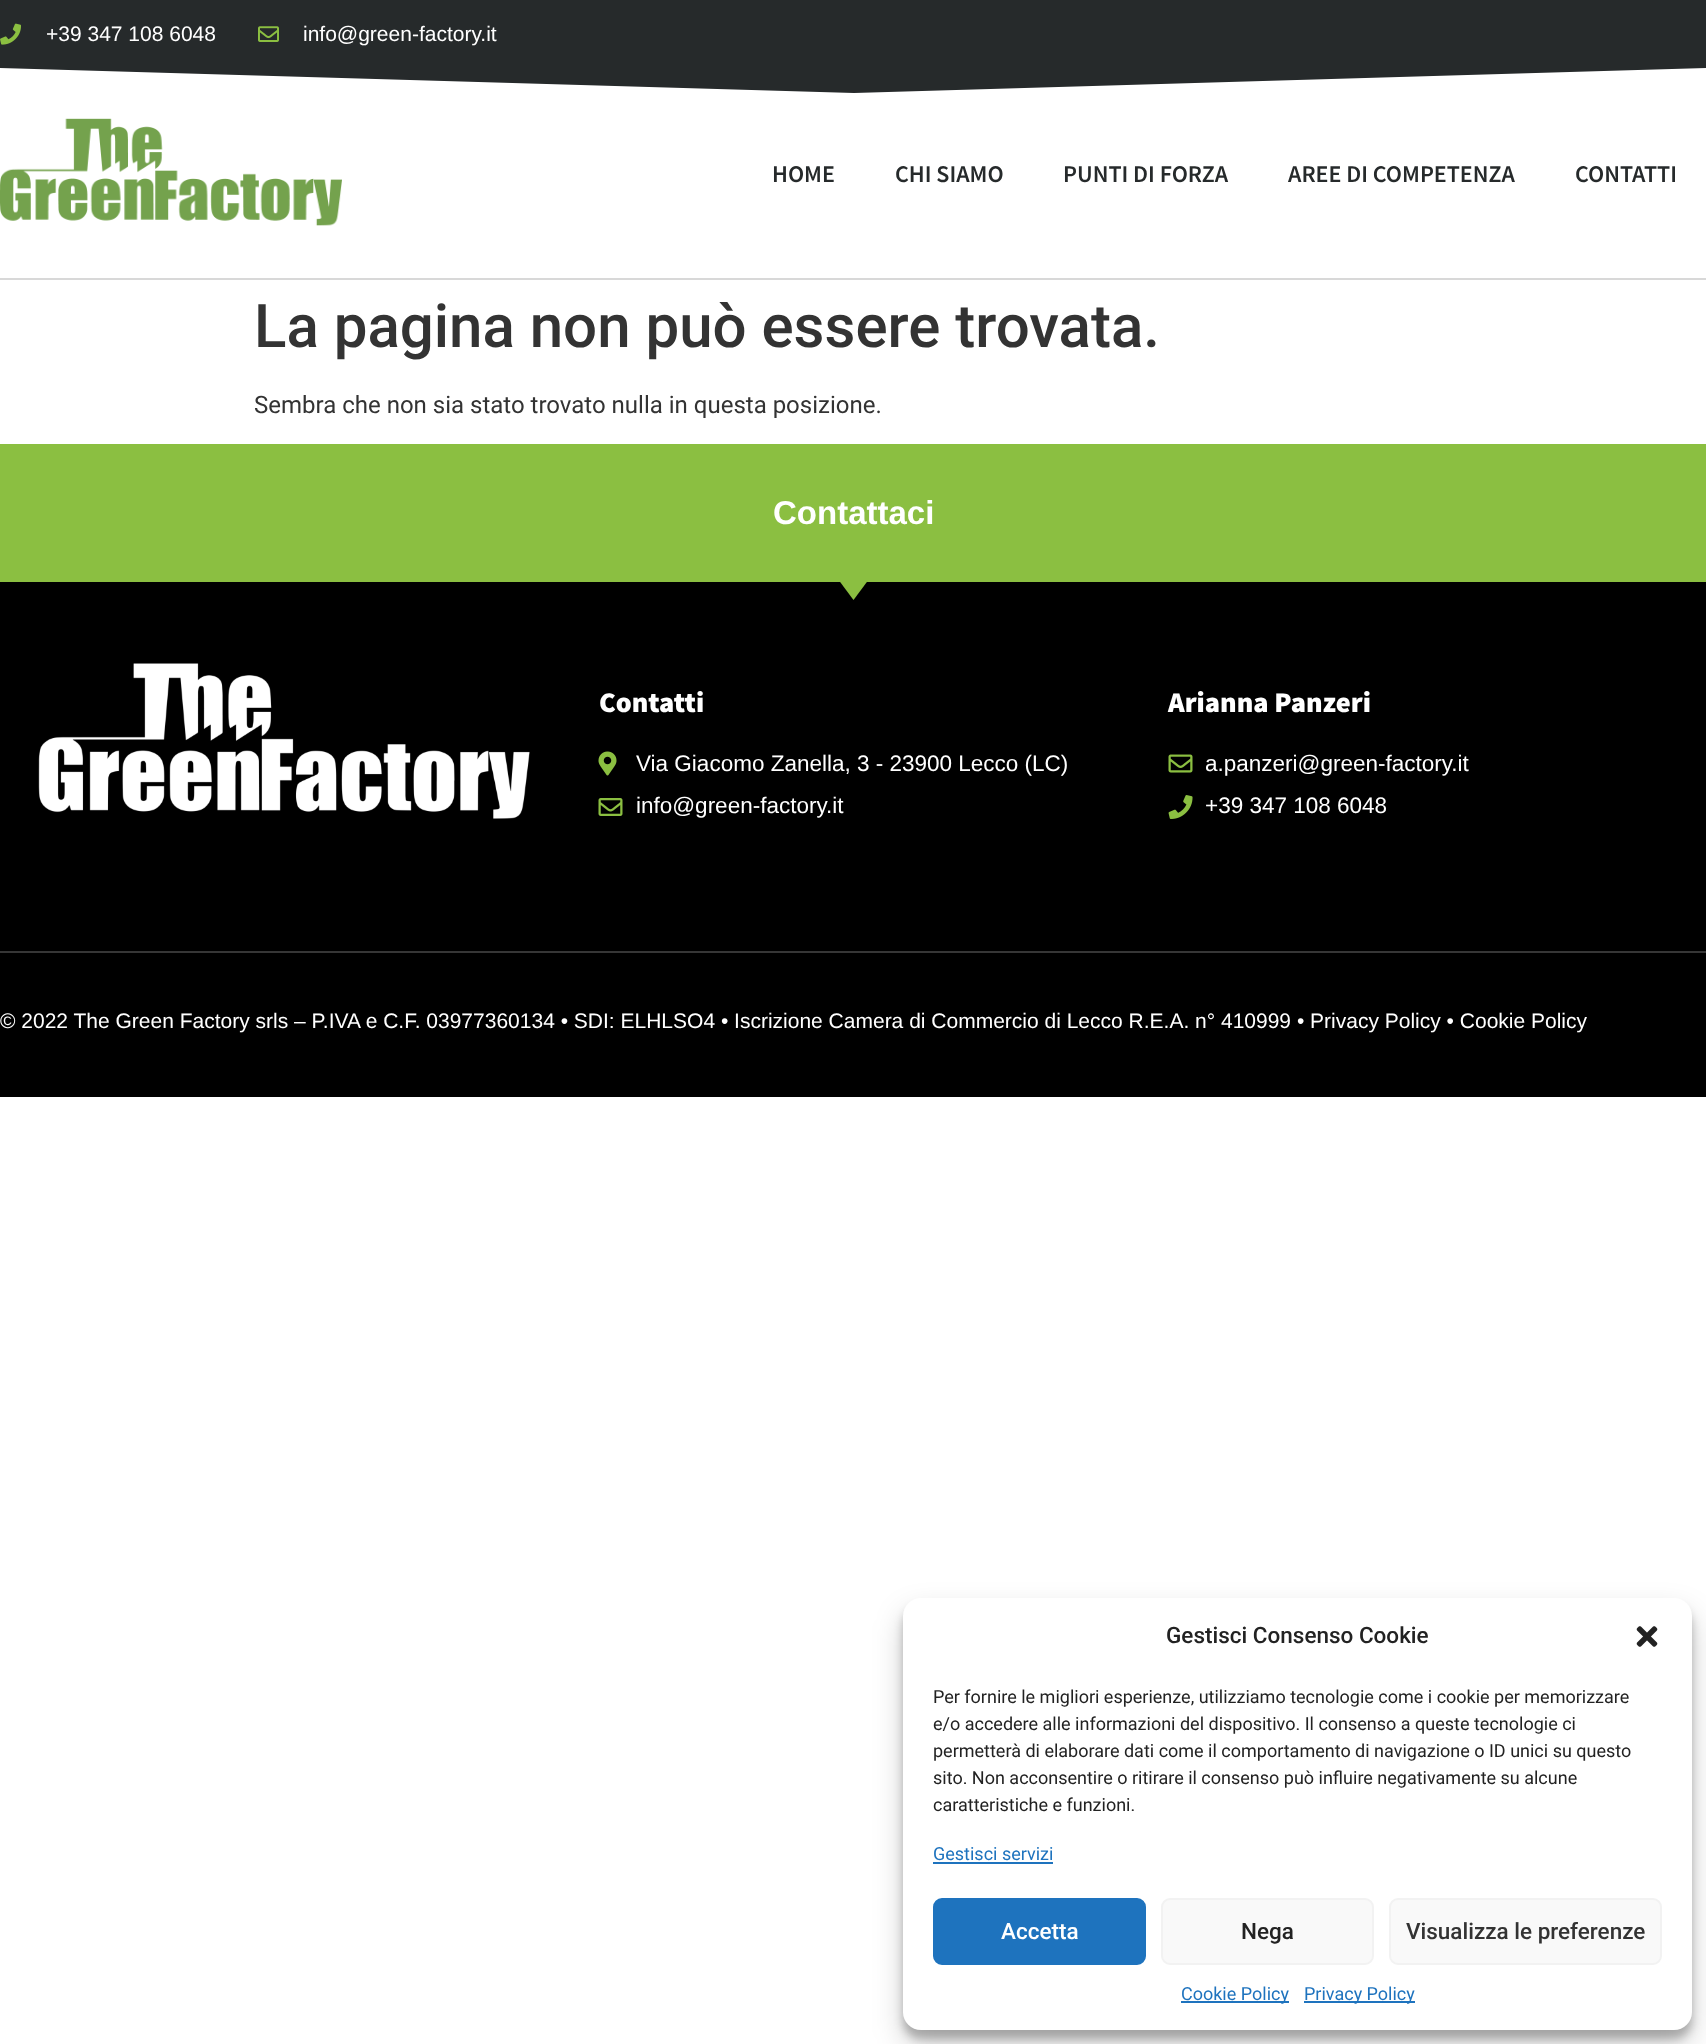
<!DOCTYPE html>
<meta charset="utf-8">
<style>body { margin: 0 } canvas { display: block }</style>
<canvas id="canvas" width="1706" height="2044"></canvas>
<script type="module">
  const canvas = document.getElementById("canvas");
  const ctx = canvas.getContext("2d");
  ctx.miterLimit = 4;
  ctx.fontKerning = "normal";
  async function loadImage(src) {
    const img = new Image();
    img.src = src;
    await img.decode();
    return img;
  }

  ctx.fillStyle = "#ffffff";
  ctx.fillRect(0, 0, 1706, 2044);
  ctx.fillStyle = "#262a2b";
  ctx.fillRect(0, 0, 1706, 66);
  ctx.drawImage(await loadImage("img1.png"), 0, 23, 21, 22);
  ctx.font = "21px Liberation Sans";
  ctx.fillStyle = "#ffffff";
  ctx.fillText("+39 347 108 6048", 46, 41);
  ctx.drawImage(await loadImage("img2.png"), 258, 26, 21, 16);
  ctx.fillText("info@green-factory.it", 303, 41);
  ctx.fillStyle = "#d8d8d8";
  ctx.fillRect(0, 278, 1706, 2);
  ctx.fillStyle = "#262a2b";
  ctx.beginPath();
  ctx.moveTo(854, 93);
  ctx.lineTo(-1, 68);
  ctx.lineTo(-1, 66);
  ctx.lineTo(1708, 66);
  ctx.lineTo(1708, 68);
  ctx.closePath();
  ctx.fill();
  ctx.drawImage(await loadImage("img3.png"), 0, 118, 342, 108);
  ctx.font = "600 24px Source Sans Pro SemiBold";
  ctx.fillText("HOME", 772, 182);
  ctx.fillText("CHI SIAMO", 895, 182);
  ctx.fillText("PUNTI DI FORZA", 1063, 182);
  ctx.fillText("AREE DI COMPETENZA", 1288, 182);
  ctx.fillText("CONTATTI", 1575, 182);
  ctx.font = "500 60px Roboto";
  ctx.fillStyle = "#333333";
  ctx.fillText("La pagina non può essere trovata.", 254, 347);
  ctx.font = "24px Roboto";
  ctx.fillText("Sembra che non sia stato trovato nulla in questa posizione.", 254, 413);
  ctx.fillStyle = "#8bbf41";
  ctx.fillRect(0, 444, 1706, 138);
  ctx.font = "bold 33px Liberation Sans";
  ctx.fillStyle = "#ffffff";
  ctx.fillText("Contattaci", 773, 524);
  ctx.fillStyle = "#000000";
  ctx.fillRect(0, 582, 1706, 515);
  ctx.save();
  ctx.beginPath();
  ctx.rect(341, 581, 1026, 19);
  ctx.clip();
  ctx.fillStyle = "#8bbf41";
  ctx.beginPath();
  ctx.moveTo(853.5, 600);
  ctx.lineTo(839, 580.5);
  ctx.lineTo(868, 580.5);
  ctx.closePath();
  ctx.fill();
  ctx.restore();
  ctx.drawImage(await loadImage("img4.png"), 38, 663, 492, 156);
  ctx.font = "900 28.5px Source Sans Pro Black";
  ctx.fillStyle = "#ffffff";
  ctx.fillText("Contatti", 599, 712);
  ctx.drawImage(await loadImage("img5.png"), 598, 751, 19, 25);
  ctx.font = "22.5px Liberation Sans";
  ctx.fillText("Via Giacomo Zanella, 3 - 23900 Lecco (LC)", 636, 771);
  ctx.drawImage(await loadImage("img6.png"), 598, 798, 25, 18);
  ctx.fillText("info@green-factory.it", 636, 813);
  ctx.font = "900 28.5px Source Sans Pro Black";
  ctx.fillText("Arianna Panzeri", 1168, 712);
  ctx.drawImage(await loadImage("img7.png"), 1168, 754, 25, 19);
  ctx.font = "22.5px Liberation Sans";
  ctx.fillText("a.panzeri@green-factory.it", 1205, 771);
  ctx.drawImage(await loadImage("img8.png"), 1168, 795, 25, 24);
  ctx.fillText("+39 347 108 6048", 1205, 813);
  ctx.fillStyle = "#363636";
  ctx.fillRect(0, 951, 1706, 2);
  ctx.font = "21px Liberation Sans";
  ctx.fillStyle = "#ffffff";
  ctx.fillText("© 2022 The Green Factory srls – P.IVA e C.F. 03977360134 • SDI: ELHLSO4 • Iscrizione Camera di Commercio di Lecco R.E.A. n° 410999 • Privacy Policy • Cookie Policy", 0, 1028);
  ctx.fillStyle = "rgba(0, 0, 0, 0.23)";
  ctx.filter = "blur(4.5px)";
  ctx.beginPath();
  ctx.roundRect(903, 1607, 789, 432, 18);
  ctx.fill();
  ctx.filter = "none";
  ctx.fillStyle = "rgba(0, 0, 0, 0.19)";
  ctx.filter = "blur(15px)";
  ctx.beginPath();
  ctx.roundRect(903, 1613, 789, 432, 18);
  ctx.fill();
  ctx.filter = "none";
  ctx.fillStyle = "#ffffff";
  ctx.beginPath();
  ctx.roundRect(903, 1598, 789, 432, 18);
  ctx.fill();
  ctx.font = "500 22.5px Roboto";
  ctx.fillStyle = "#222222";
  ctx.fillText("Gestisci Consenso Cookie", 1166, 1643);
  ctx.drawImage(await loadImage("img9.png"), 1636, 1626, 22, 21);
  ctx.font = "18px Roboto";
  ctx.fillText("Per fornire le migliori esperienze, utilizziamo tecnologie come i cookie per memorizzare", 933, 1703);
  ctx.fillText("e/o accedere alle informazioni del dispositivo. Il consenso a queste tecnologie ci", 933, 1730);
  ctx.fillText("permetterà di elaborare dati come il comportamento di navigazione o ID unici su questo", 933, 1757);
  ctx.fillText("sito. Non acconsentire o ritirare il consenso può influire negativamente su alcune", 933, 1784);
  ctx.fillText("caratteristiche e funzioni.", 933, 1811);
  ctx.fillStyle = "#1e73be";
  ctx.fillText("Gestisci servizi", 933, 1860);
  ctx.fillRect(933, 1862, 120, 2);
  ctx.beginPath();
  ctx.roundRect(934, 1899, 211, 65, 8);
  ctx.fill();
  ctx.strokeStyle = "#1e73be";
  ctx.lineWidth = 2;
  ctx.stroke();
  ctx.font = "500 22.5px Roboto";
  ctx.fillStyle = "#ffffff";
  ctx.fillText("Accetta", 1001, 1939);
  ctx.fillStyle = "#f9f9f9";
  ctx.beginPath();
  ctx.roundRect(1162, 1899, 211, 65, 8);
  ctx.fill();
  ctx.strokeStyle = "#f2f2f2";
  ctx.stroke();
  ctx.fillStyle = "#222222";
  ctx.fillText("Nega", 1241, 1939);
  ctx.fillStyle = "#f9f9f9";
  ctx.beginPath();
  ctx.roundRect(1390, 1899, 271, 65, 8);
  ctx.fill();
  ctx.stroke();
  ctx.fillStyle = "#333333";
  ctx.fillText("Visualizza le preferenze", 1406, 1939);
  ctx.fillStyle = "#1e73be";
  ctx.fillRect(1181, 2001, 108, 2);
  ctx.font = "18px Roboto";
  ctx.fillText("Cookie Policy", 1181, 2000);
  ctx.fillRect(1304, 2001, 111, 2);
  ctx.fillText("Privacy Policy", 1304, 2000);
</script>
